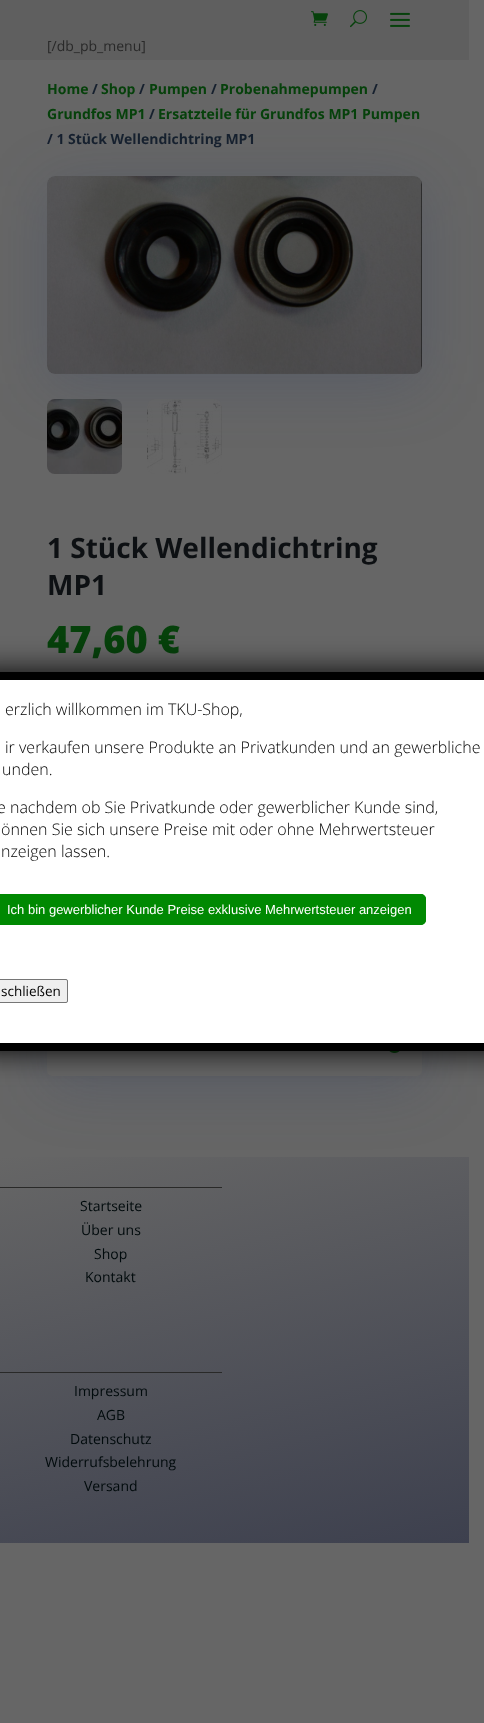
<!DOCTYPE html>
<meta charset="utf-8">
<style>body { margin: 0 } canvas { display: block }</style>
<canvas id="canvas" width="484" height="1723"></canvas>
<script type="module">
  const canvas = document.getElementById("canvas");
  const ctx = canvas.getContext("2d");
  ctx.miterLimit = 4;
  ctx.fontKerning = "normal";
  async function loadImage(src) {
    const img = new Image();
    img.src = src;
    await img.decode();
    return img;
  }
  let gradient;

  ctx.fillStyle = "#666666";
  ctx.fillRect(0, 0, 484, 1723);
  ctx.fillStyle = "#5f5f5f";
  ctx.fillRect(0, 0, 469, 60);
  ctx.drawImage(await loadImage("img1.png"), 311, 11, 17, 15);
  ctx.drawImage(await loadImage("img2.png"), 350, 10, 17, 18);
  ctx.drawImage(await loadImage("img3.png"), 390, 12, 20, 15);
  ctx.font = "14px Open Sans";
  ctx.fillStyle = "#292929";
  ctx.fillText("[/db_pb_menu]", 47, 51);
  ctx.font = "bold 14px Open Sans";
  ctx.fillStyle = "#06410b";
  ctx.fillText("Home", 47, 94);
  ctx.fillStyle = "#16202e";
  ctx.fillText("/", 92, 94);
  ctx.fillStyle = "#06410b";
  ctx.fillText("Shop", 101, 94);
  ctx.fillStyle = "#16202e";
  ctx.fillText("/", 139, 94);
  ctx.fillStyle = "#06410b";
  ctx.fillText("Pumpen", 149, 94);
  ctx.fillStyle = "#16202e";
  ctx.fillText("/", 211, 94);
  ctx.fillStyle = "#06410b";
  ctx.fillText("Probenahmepumpen", 220, 94);
  ctx.fillStyle = "#16202e";
  ctx.fillText("/", 372, 94);
  ctx.fillStyle = "#06410b";
  ctx.fillText("Grundfos MP1", 47, 119);
  ctx.fillStyle = "#16202e";
  ctx.fillText("/", 149, 119);
  ctx.fillStyle = "#06410b";
  ctx.fillText("Ersatzteile für Grundfos MP1 Pumpen", 158, 119);
  ctx.fillStyle = "#16202e";
  ctx.fillText("/ 1 Stück Wellendichtring MP1", 47, 144);
  ctx.drawImage(await loadImage("img5.png"), 47, 399, 75, 75);
  ctx.fillStyle = "rgba(41, 60, 102, 0.24)";
  ctx.filter = "blur(30px)";
  ctx.beginPath();
  ctx.roundRect(47, 186, 375, 198, 8);
  ctx.fill();
  ctx.filter = "none";
  ctx.drawImage(await loadImage("img4.png"), 47, 176, 375, 198);
  ctx.drawImage(await loadImage("img6.png"), 147, 399, 75, 75);
  ctx.font = "bold 28px Open Sans";
  ctx.fillStyle = "#0d1013";
  ctx.fillText("1 Stück Wellendichtring", 47, 558);
  ctx.fillText("MP1", 47, 595);
  ctx.font = "800 38px Open Sans";
  ctx.fillStyle = "#06410b";
  ctx.fillText("47,60 €", 47, 653);
  ctx.fillStyle = "rgba(41, 60, 102, 0.24)";
  ctx.filter = "blur(30px)";
  ctx.beginPath();
  ctx.roundRect(47, 1024, 375, 62, 5);
  ctx.fill();
  ctx.filter = "none";
  ctx.fillStyle = "#666666";
  ctx.beginPath();
  ctx.roundRect(47, 1014, 375, 62, 5);
  ctx.fill();
  ctx.drawImage(await loadImage("img7.png"), 389, 1051, 11, 2);
  gradient = ctx.createLinearGradient(175, 1113, 294, 1587);
  gradient.addColorStop(0, "#666666");
  gradient.addColorStop(1, "#3d404e");
  ctx.fillStyle = gradient;
  ctx.fillRect(0, 1157, 469, 386);
  ctx.fillStyle = "#292928";
  ctx.fillRect(0, 1187, 222, 1);
  ctx.font = "14px Open Sans";
  ctx.fillStyle = "#000a0c";
  ctx.fillText("Startseite", 80, 1211);
  ctx.fillText("Über uns", 81, 1235);
  ctx.fillText("Shop", 94, 1259);
  ctx.fillText("Kontakt", 85, 1282);
  ctx.fillStyle = "#292928";
  ctx.fillRect(0, 1372, 222, 1);
  ctx.fillStyle = "#000a0c";
  ctx.fillText("Impressum", 74, 1396);
  ctx.fillText("AGB", 97, 1420);
  ctx.fillText("Datenschutz", 70, 1444);
  ctx.fillText("Widerrufsbelehrung", 45, 1467);
  ctx.fillText("Versand", 84, 1491);
  ctx.fillStyle = "#020202";
  ctx.filter = "blur(15px)";
  ctx.beginPath();
  ctx.roundRect(-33, 672, 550, 379, 3);
  ctx.fill();
  ctx.filter = "none";
  ctx.fillStyle = "#ffffff";
  ctx.fillRect(0, 680, 484, 363);
  ctx.beginPath();
  ctx.moveTo(-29, 676);
  ctx.lineTo(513, 676);
  ctx.lineTo(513, 1047);
  ctx.lineTo(-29, 1047);
  ctx.closePath();
  ctx.strokeStyle = "#000000";
  ctx.lineWidth = 8;
  ctx.stroke();
  ctx.font = "300 16px Open Sans";
  ctx.fillStyle = "#000000";
  ctx.fillText("erzlich willkommen im TKU-Shop,", 5, 715);
  ctx.fillText("ir verkaufen unsere Produkte an Privatkunden und an gewerbliche", 5, 753);
  ctx.fillText("unden.", 2, 775);
  ctx.fillText("e nachdem ob Sie Privatkunde oder gewerblicher Kunde sind,", -3, 813);
  ctx.fillText("önnen Sie sich unsere Preise mit oder ohne Mehrwertsteuer", 1, 835);
  ctx.fillText("nzeigen lassen.", 1, 857);
  ctx.fillStyle = "#008902";
  ctx.beginPath();
  ctx.roundRect(0, 894, 426, 31, [0, 5, 5, 0]);
  ctx.fill();
  ctx.beginPath();
  ctx.roundRect(-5.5, 894.5, 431, 30, 4.5);
  ctx.strokeStyle = "#008902";
  ctx.lineWidth = 1;
  ctx.stroke();
  ctx.font = "13px Liberation Sans";
  ctx.fillStyle = "#ffffff";
  ctx.fillText("Ich bin gewerblicher Kunde Preise exklusive Mehrwertsteuer anzeigen", 7, 914);
  ctx.fillStyle = "#efefef";
  ctx.beginPath();
  ctx.roundRect(0, 979, 68, 24, [0, 2, 2, 0]);
  ctx.fill();
  ctx.beginPath();
  ctx.roundRect(-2.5, 979.5, 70, 23, 1.5);
  ctx.strokeStyle = "#767676";
  ctx.stroke();
  ctx.font = "13.5px Open Sans";
  ctx.fillStyle = "#000000";
  ctx.fillText("schließen", 1, 996);
</script>
